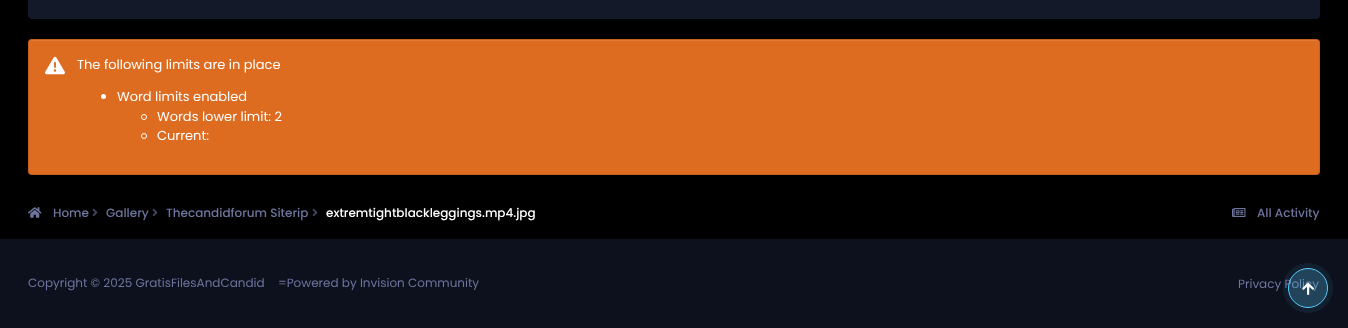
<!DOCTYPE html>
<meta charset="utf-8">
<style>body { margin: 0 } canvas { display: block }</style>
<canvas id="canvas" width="1348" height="328"></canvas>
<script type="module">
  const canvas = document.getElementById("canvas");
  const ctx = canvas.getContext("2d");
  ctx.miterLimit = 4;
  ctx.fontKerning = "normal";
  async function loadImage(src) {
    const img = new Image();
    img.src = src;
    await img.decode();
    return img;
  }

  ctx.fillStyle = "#000000";
  ctx.fillRect(0, 0, 1348, 328);
  ctx.fillStyle = "#141929";
  ctx.beginPath();
  ctx.roundRect(28.5, -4.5, 1291, 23, 3.5);
  ctx.fill();
  ctx.strokeStyle = "#141929";
  ctx.stroke();
  ctx.fillStyle = "#dd6b20";
  ctx.beginPath();
  ctx.roundRect(28, 39, 1292, 136, 4);
  ctx.fill();
  ctx.fillStyle = "#e07a36";
  ctx.beginPath();
  ctx.moveTo(32, 41);
  ctx.lineTo(1316, 41);
  ctx.bezierCurveTo(1318, 41, 1319, 42, 1319, 44);
  ctx.lineTo(1319, 43);
  ctx.bezierCurveTo(1319, 41, 1318, 40, 1316, 40);
  ctx.lineTo(32, 40);
  ctx.bezierCurveTo(30, 40, 29, 41, 29, 43);
  ctx.lineTo(29, 44);
  ctx.bezierCurveTo(29, 42, 30, 41, 32, 41);
  ctx.closePath();
  ctx.fill();
  ctx.beginPath();
  ctx.roundRect(28.5, 39.5, 1291, 135, 3.5);
  ctx.strokeStyle = "rgba(0, 0, 0, 0.1)";
  ctx.stroke();
  ctx.drawImage(await loadImage("img1.png"), 45, 56, 20, 19);
  ctx.font = "13px Poppins";
  ctx.fillStyle = "#ffffff";
  ctx.fillText("The following limits are in place", 77, 69);
  ctx.beginPath();
  ctx.arc(103.5, 96.5, 2.5, 0, Math.PI * 2);
  ctx.fill();
  ctx.fillText("Word limits enabled", 117, 101);
  ctx.beginPath();
  ctx.arc(144, 117, 2.5, 0, Math.PI * 2);
  ctx.strokeStyle = "#ffffff";
  ctx.stroke();
  ctx.fillText("Words lower limit: 2", 157, 121);
  ctx.beginPath();
  ctx.arc(144, 136, 2.5, 0, Math.PI * 2);
  ctx.stroke();
  ctx.fillText("Current:", 157, 140);
  ctx.drawImage(await loadImage("img2.png"), 28, 207, 14, 11);
  ctx.font = "500 12px Poppins";
  ctx.fillStyle = "#6e759e";
  ctx.fillText("Home", 53, 217);
  ctx.drawImage(await loadImage("img3.png"), 92, 208, 6, 9);
  ctx.fillText("Gallery", 106, 217);
  ctx.drawImage(await loadImage("img3.png"), 152, 208, 6, 9);
  ctx.fillText("Thecandidforum Siterip", 166, 217);
  ctx.drawImage(await loadImage("img3.png"), 312, 208, 6, 9);
  ctx.fillStyle = "#ffffff";
  ctx.fillText("extremtightblackleggings.mp4.jpg", 326, 217);
  ctx.drawImage(await loadImage("img4.png"), 1232, 208, 14, 9);
  ctx.fillStyle = "#6e759e";
  ctx.fillText("All Activity", 1257, 217);
  ctx.fillStyle = "#0d111d";
  ctx.fillRect(0, 239, 1348, 89);
  ctx.beginPath();
  ctx.arc(1308, 288, 22.5, 0, Math.PI * 2);
  ctx.strokeStyle = "rgba(89, 207, 255, 0.08)";
  ctx.lineWidth = 5;
  ctx.stroke();
  ctx.font = "12px Poppins";
  ctx.fillStyle = "#6e759e";
  ctx.fillText("Privacy Policy", 1238, 288);
  ctx.fillStyle = "rgba(89, 207, 255, 0.27)";
  ctx.beginPath();
  ctx.arc(1308, 288, 19.5, 0, Math.PI * 2);
  ctx.fill();
  ctx.strokeStyle = "#59cfff";
  ctx.lineWidth = 1;
  ctx.stroke();
  ctx.drawImage(await loadImage("img5.png"), 1302, 282, 12, 13);
  ctx.fillStyle = "#6e759e";
  ctx.fillText("Copyright © 2025 GratisFilesAndCandid", 28, 287);
  ctx.fillText("=Powered by Invision Community", 278, 287);
</script>
